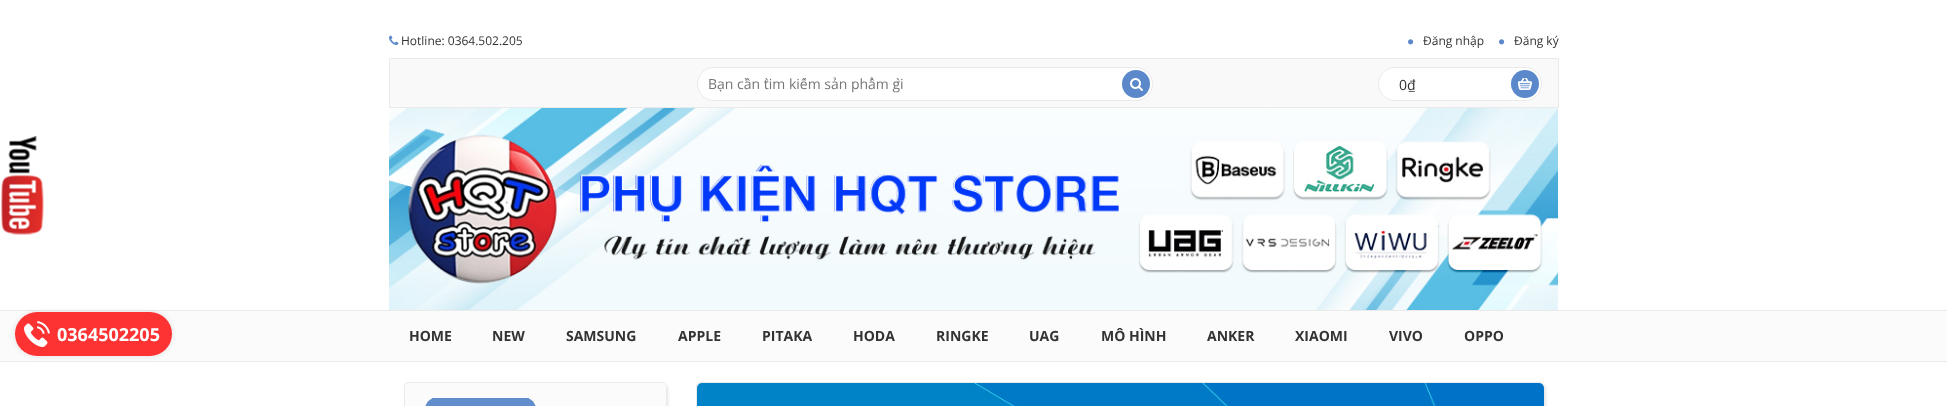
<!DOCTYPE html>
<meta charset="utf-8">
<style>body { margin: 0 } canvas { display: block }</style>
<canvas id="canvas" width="1947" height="406"></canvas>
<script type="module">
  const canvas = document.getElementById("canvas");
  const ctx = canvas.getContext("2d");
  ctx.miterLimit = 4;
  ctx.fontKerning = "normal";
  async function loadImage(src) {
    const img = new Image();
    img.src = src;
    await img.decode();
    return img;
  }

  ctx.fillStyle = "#ffffff";
  ctx.fillRect(0, 0, 1947, 406);
  ctx.drawImage(await loadImage("img1.png"), 1, 136, 43, 99);
  ctx.drawImage(await loadImage("img2.png"), 389, 35, 10, 10);
  ctx.font = "12px Open Sans";
  ctx.fillStyle = "#333333";
  ctx.fillText("Hotline: 0364.502.205", 401, 45);
  ctx.drawImage(await loadImage("img3.png"), 1408, 39, 6, 6);
  ctx.fillText("Đăng nhập", 1423, 45);
  ctx.drawImage(await loadImage("img3.png"), 1499, 39, 6, 6);
  ctx.fillText("Đăng ký", 1514, 45);
  ctx.fillStyle = "#f9f9f9";
  ctx.beginPath();
  ctx.rect(389.5, 58.5, 1169, 49);
  ctx.fill();
  ctx.strokeStyle = "#eaeaea";
  ctx.stroke();
  ctx.fillStyle = "#ffffff";
  ctx.beginPath();
  ctx.roundRect(697.5, 67.5, 455, 33, 16.5);
  ctx.fill();
  ctx.stroke();
  ctx.font = "14px Open Sans";
  ctx.fillStyle = "#757575";
  ctx.fillText("Bạn cần tìm kiếm sản phẩm gì", 708, 89);
  ctx.fillStyle = "#5a88ca";
  ctx.beginPath();
  ctx.arc(1136, 84, 14, 0, Math.PI * 2);
  ctx.fill();
  ctx.drawImage(await loadImage("img4.png"), 1130, 78, 13, 13);
  ctx.fillStyle = "#ffffff";
  ctx.beginPath();
  ctx.roundRect(1378.5, 67.5, 163, 33, 16.5);
  ctx.fill();
  ctx.stroke();
  ctx.fillStyle = "#333333";
  ctx.fillText("0₫", 1399, 90);
  ctx.fillStyle = "#5a88ca";
  ctx.beginPath();
  ctx.arc(1525, 84, 14, 0, Math.PI * 2);
  ctx.fill();
  ctx.drawImage(await loadImage("img5.png"), 1518, 78, 14, 12);
  ctx.drawImage(await loadImage("img6.png"), 389, 108, 1169, 202);
  ctx.fillStyle = "#fbfbfb";
  ctx.fillRect(0, 311, 1947, 50);
  ctx.fillStyle = "#eaeaea";
  ctx.fillRect(0, 310, 1947, 1);
  ctx.fillRect(0, 361, 1947, 1);
  ctx.font = "bold 14px Open Sans";
  ctx.fillStyle = "#333333";
  ctx.fillText("HOME", 409, 341);
  ctx.fillText("NEW", 492, 341);
  ctx.fillText("SAMSUNG", 566, 341);
  ctx.fillText("APPLE", 678, 341);
  ctx.fillText("PITAKA", 762, 341);
  ctx.fillText("HODA", 853, 341);
  ctx.fillText("RINGKE", 936, 341);
  ctx.fillText("UAG", 1029, 341);
  ctx.fillText("MÔ HÌNH", 1101, 341);
  ctx.fillText("ANKER", 1207, 341);
  ctx.fillText("XIAOMI", 1295, 341);
  ctx.fillText("VIVO", 1389, 341);
  ctx.fillText("OPPO", 1464, 341);
  ctx.save();
  ctx.beginPath();
  ctx.moveTo(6, 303);
  ctx.lineTo(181, 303);
  ctx.lineTo(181, 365);
  ctx.lineTo(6, 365);
  ctx.closePath();
  ctx.moveTo(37, 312);
  ctx.lineTo(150, 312);
  ctx.bezierCurveTo(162, 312, 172, 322, 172, 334);
  ctx.bezierCurveTo(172, 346, 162, 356, 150, 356);
  ctx.lineTo(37, 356);
  ctx.bezierCurveTo(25, 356, 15, 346, 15, 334);
  ctx.bezierCurveTo(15, 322, 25, 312, 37, 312);
  ctx.closePath();
  ctx.clip("evenodd");
  ctx.fillStyle = "#dddddd";
  ctx.filter = "blur(2.5px)";
  ctx.beginPath();
  ctx.roundRect(15, 312, 157, 44, 22);
  ctx.fill();
  ctx.filter = "none";
  ctx.restore();
  ctx.fillStyle = "rgba(254, 0, 0, 0.8)";
  ctx.beginPath();
  ctx.roundRect(15, 312, 157, 44, 22);
  ctx.fill();
  ctx.drawImage(await loadImage("img7.png"), 24, 321, 26, 26);
  ctx.font = "bold 18px Open Sans";
  ctx.fillStyle = "#ffffff";
  ctx.fillText("0364502205", 57, 341);
  ctx.fillStyle = "rgba(0, 0, 0, 0.1)";
  ctx.filter = "blur(1.5px)";
  ctx.beginPath();
  ctx.roundRect(406, 384, 262, 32, 5);
  ctx.fill();
  ctx.filter = "none";
  ctx.fillStyle = "#ffffff";
  ctx.beginPath();
  ctx.roundRect(404, 382, 262, 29, 5);
  ctx.fill();
  ctx.fillStyle = "#eaeaea";
  ctx.beginPath();
  ctx.moveTo(409, 382);
  ctx.lineTo(661, 382);
  ctx.bezierCurveTo(664, 382, 666, 384, 666, 387);
  ctx.lineTo(666, 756);
  ctx.bezierCurveTo(666, 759, 664, 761, 661, 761);
  ctx.lineTo(409, 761);
  ctx.bezierCurveTo(406, 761, 404, 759, 404, 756);
  ctx.lineTo(404, 387);
  ctx.bezierCurveTo(404, 384, 406, 382, 409, 382);
  ctx.closePath();
  ctx.moveTo(409, 383);
  ctx.lineTo(661, 383);
  ctx.bezierCurveTo(664, 383, 666, 385, 666, 387);
  ctx.lineTo(666, 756);
  ctx.bezierCurveTo(666, 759, 664, 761, 661, 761);
  ctx.lineTo(409, 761);
  ctx.bezierCurveTo(407, 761, 405, 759, 405, 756);
  ctx.lineTo(405, 387);
  ctx.bezierCurveTo(405, 385, 407, 383, 409, 383);
  ctx.closePath();
  ctx.fill("evenodd");
  ctx.fillStyle = "#fbfbfb";
  ctx.beginPath();
  ctx.moveTo(410, 383);
  ctx.lineTo(661, 383);
  ctx.bezierCurveTo(664, 383, 666, 385, 666, 388);
  ctx.lineTo(666, 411);
  ctx.lineTo(405, 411);
  ctx.lineTo(405, 388);
  ctx.bezierCurveTo(405, 385, 407, 383, 410, 383);
  ctx.closePath();
  ctx.fill();
  ctx.fillStyle = "#618dcc";
  ctx.beginPath();
  ctx.roundRect(425, 398, 111, 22, 14);
  ctx.fill();
  ctx.fillRect(432, 398, 97, 1);
  ctx.fillStyle = "rgba(0, 0, 0, 0.1)";
  ctx.filter = "blur(1.5px)";
  ctx.beginPath();
  ctx.roundRect(698, 384, 848, 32, 5);
  ctx.fill();
  ctx.filter = "none";
  ctx.fillStyle = "#ffffff";
  ctx.beginPath();
  ctx.roundRect(696, 382, 848, 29, 5);
  ctx.fill();
  ctx.fillStyle = "#eaeaea";
  ctx.beginPath();
  ctx.moveTo(701, 382);
  ctx.lineTo(1539, 382);
  ctx.bezierCurveTo(1542, 382, 1544, 384, 1544, 387);
  ctx.lineTo(1544, 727);
  ctx.bezierCurveTo(1544, 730, 1542, 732, 1539, 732);
  ctx.lineTo(701, 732);
  ctx.bezierCurveTo(698, 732, 696, 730, 696, 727);
  ctx.lineTo(696, 387);
  ctx.bezierCurveTo(696, 384, 698, 382, 701, 382);
  ctx.closePath();
  ctx.moveTo(701, 383);
  ctx.lineTo(1539, 383);
  ctx.bezierCurveTo(1542, 383, 1544, 385, 1544, 387);
  ctx.lineTo(1544, 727);
  ctx.bezierCurveTo(1544, 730, 1542, 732, 1539, 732);
  ctx.lineTo(701, 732);
  ctx.bezierCurveTo(699, 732, 697, 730, 697, 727);
  ctx.lineTo(697, 387);
  ctx.bezierCurveTo(697, 385, 699, 383, 701, 383);
  ctx.closePath();
  ctx.fill("evenodd");
  ctx.drawImage(await loadImage("img8.png"), 697, 383, 847, 23);
</script>
